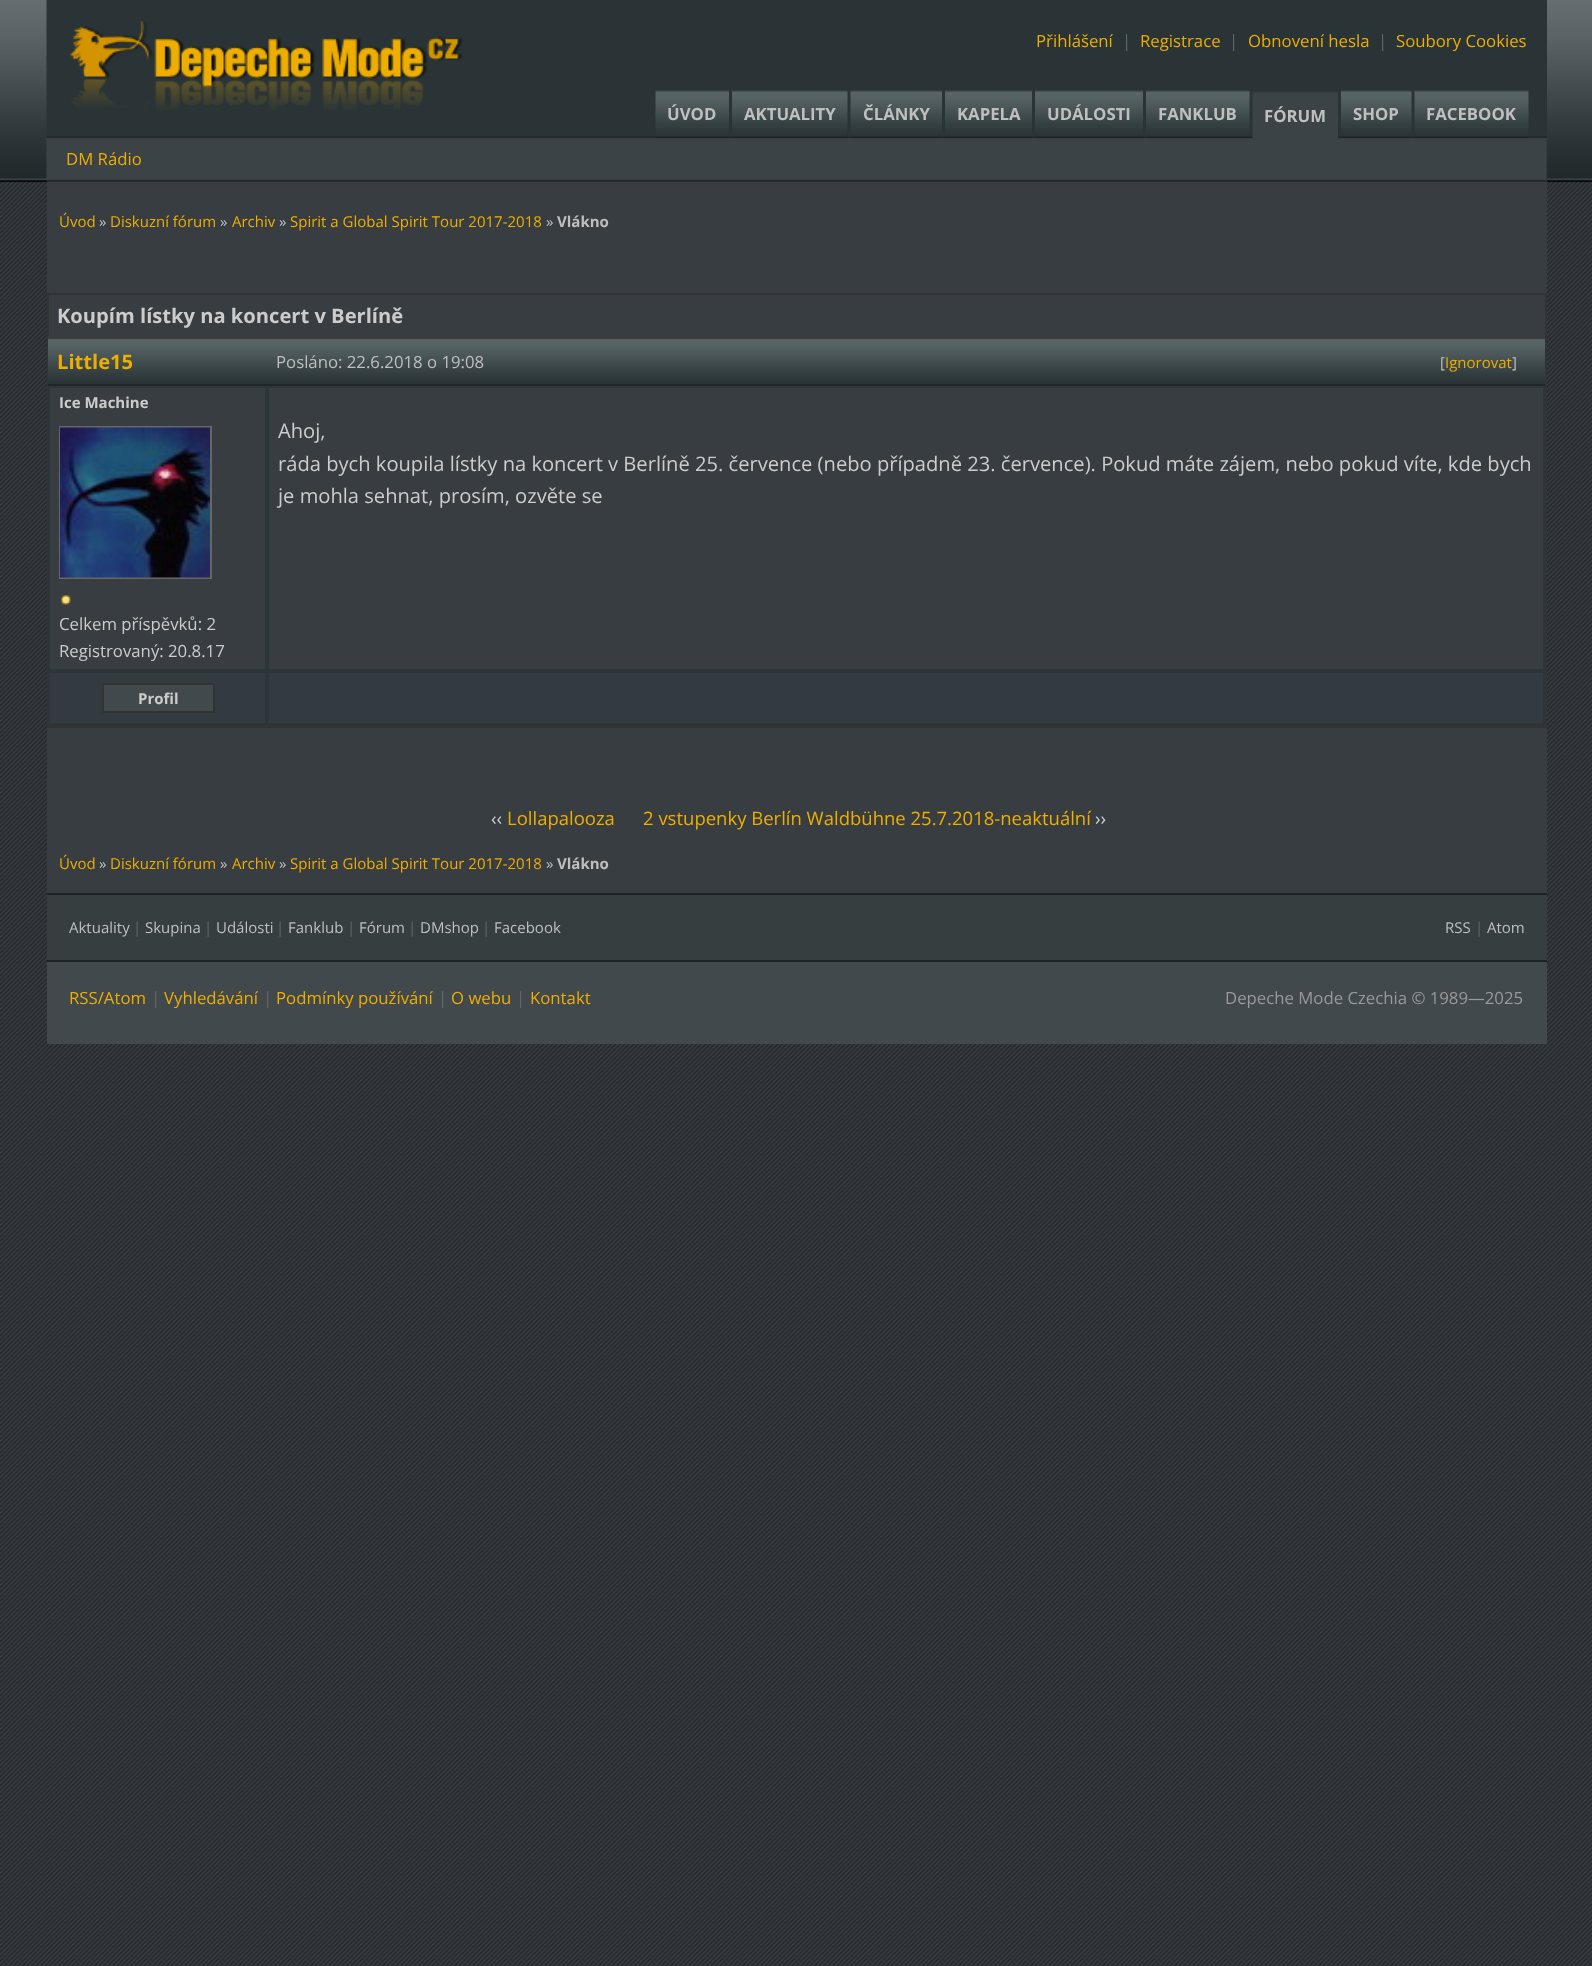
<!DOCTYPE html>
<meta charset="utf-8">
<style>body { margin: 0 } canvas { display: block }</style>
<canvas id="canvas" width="1592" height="1966"></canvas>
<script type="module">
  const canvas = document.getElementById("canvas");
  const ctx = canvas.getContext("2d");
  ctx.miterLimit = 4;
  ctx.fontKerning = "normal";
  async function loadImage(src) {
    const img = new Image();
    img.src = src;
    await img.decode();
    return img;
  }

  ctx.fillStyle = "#ffffff";
  ctx.fillRect(0, 0, 1592, 1966);
  ctx.drawImage(await loadImage("img1.png"), 0, 182, 1592, 1784);
  ctx.fillStyle = "#000000";
  ctx.fillRect(0, 181, 1592, 1);
  ctx.drawImage(await loadImage("img2.png"), 0, 0, 1592, 182);
  ctx.fillStyle = "#2a3436";
  ctx.fillRect(47, 0, 1500, 182);
  ctx.drawImage(await loadImage("img3.png"), 46, 0, 1501, 182);
  ctx.drawImage(await loadImage("img4.png"), 70, 20, 393, 90);
  ctx.font = "16.75px Open Sans";
  ctx.fillStyle = "#eeae00";
  ctx.fillText("Přihlášení", 1036, 47);
  ctx.fillStyle = "#666666";
  ctx.fillText("|", 1122, 47);
  ctx.fillStyle = "#eeae00";
  ctx.fillText("Registrace", 1140, 47);
  ctx.fillStyle = "#666666";
  ctx.fillText("|", 1229, 47);
  ctx.fillStyle = "#eeae00";
  ctx.fillText("Obnovení hesla", 1248, 47);
  ctx.fillStyle = "#666666";
  ctx.fillText("|", 1378, 47);
  ctx.fillStyle = "#eeae00";
  ctx.fillText("Soubory Cookies", 1396, 47);
  ctx.drawImage(await loadImage("img5.png"), 655, 90, 74, 48);
  ctx.font = "bold 16.75px Open Sans";
  ctx.fillStyle = "#bfbfbf";
  ctx.fillText("ÚVOD", 667, 120);
  ctx.drawImage(await loadImage("img6.png"), 732, 90, 116, 48);
  ctx.fillText("AKTUALITY", 744, 120);
  ctx.drawImage(await loadImage("img7.png"), 850, 90, 92, 48);
  ctx.fillText("ČLÁNKY", 863, 120);
  ctx.drawImage(await loadImage("img8.png"), 945, 90, 87, 48);
  ctx.fillText("KAPELA", 957, 120);
  ctx.drawImage(await loadImage("img9.png"), 1035, 90, 108, 48);
  ctx.fillText("UDÁLOSTI", 1047, 120);
  ctx.drawImage(await loadImage("img10.png"), 1146, 90, 104, 48);
  ctx.fillText("FANKLUB", 1158, 120);
  ctx.drawImage(await loadImage("img11.png"), 1252, 91, 86, 48);
  ctx.fillText("FÓRUM", 1264, 122);
  ctx.drawImage(await loadImage("img12.png"), 1341, 90, 71, 48);
  ctx.fillText("SHOP", 1353, 120);
  ctx.drawImage(await loadImage("img13.png"), 1414, 90, 115, 48);
  ctx.fillText("FACEBOOK", 1426, 120);
  ctx.font = "16.75px Open Sans";
  ctx.fillStyle = "#eeae00";
  ctx.fillText("DM Rádio", 66, 165);
  ctx.fillStyle = "#383d41";
  ctx.fillRect(47, 182, 1500, 711);
  ctx.font = "15px Open Sans";
  ctx.fillStyle = "#eeae00";
  ctx.fillText("Úvod", 59, 227);
  ctx.fillStyle = "#bfbfbf";
  ctx.fillText("»", 99, 227);
  ctx.fillStyle = "#eeae00";
  ctx.fillText("Diskuzní fórum", 110, 227);
  ctx.fillStyle = "#bfbfbf";
  ctx.fillText("»", 220, 227);
  ctx.fillStyle = "#eeae00";
  ctx.fillText("Archiv", 232, 227);
  ctx.fillStyle = "#bfbfbf";
  ctx.fillText("»", 279, 227);
  ctx.fillStyle = "#eeae00";
  ctx.fillText("Spirit a Global Spirit Tour 2017-2018", 290, 227);
  ctx.fillStyle = "#bfbfbf";
  ctx.fillText("»", 546, 227);
  ctx.font = "bold 15px Open Sans";
  ctx.fillText("Vlákno", 557, 227);
  ctx.strokeStyle = "#333333";
  ctx.lineWidth = 2;
  ctx.strokeRect(48, 294, 1498, 433);
  ctx.font = "bold 20.15px Open Sans";
  ctx.fillStyle = "#cccccc";
  ctx.fillText("Koupím lístky na koncert v Berlíně", 57, 323);
  ctx.fillStyle = "#333333";
  ctx.fillRect(48, 725, 1497, 1);
  ctx.fillStyle = "#2d2d2d";
  ctx.fillRect(48, 385, 1497, 1);
  ctx.drawImage(await loadImage("img14.png"), 48, 338, 219, 48);
  ctx.fillStyle = "#3c3c3c";
  ctx.fillRect(48, 336, 1497, 2);
  ctx.fillStyle = "#eeae00";
  ctx.fillText("Little15", 57, 369);
  ctx.drawImage(await loadImage("img15.png"), 267, 338, 1278, 48);
  ctx.font = "16.75px Open Sans";
  ctx.fillStyle = "#bfbfbf";
  ctx.fillText("Posláno: 22.6.2018 o 19:08", 276, 368);
  ctx.font = "15px Open Sans";
  ctx.fillText("[", 1440, 368);
  ctx.fillStyle = "#eeae00";
  ctx.fillText("Ignorovat", 1445, 368);
  ctx.fillStyle = "#bfbfbf";
  ctx.fillText("]", 1512, 368);
  ctx.strokeStyle = "#2c3638";
  ctx.strokeRect(49, 387, 217, 283);
  ctx.font = "bold 15px Open Sans";
  ctx.fillStyle = "#cccccc";
  ctx.fillText("Ice Machine", 59, 408);
  ctx.strokeStyle = "#666666";
  ctx.strokeRect(60, 427, 151, 151);
  ctx.drawImage(await loadImage("img16.png"), 60, 427, 150, 151);
  ctx.drawImage(await loadImage("img17.png"), 61, 595, 10, 10);
  ctx.font = "16.75px Open Sans";
  ctx.fillText("Celkem příspěvků: 2", 59, 630);
  ctx.fillText("Registrovaný: 20.8.17", 59, 657);
  ctx.strokeStyle = "#2c3638";
  ctx.strokeRect(268, 387, 1276, 283);
  ctx.font = "20.15px Open Sans";
  ctx.fillText("Ahoj,", 278, 438);
  ctx.fillText("ráda bych koupila lístky na koncert v Berlíně 25. července (nebo případně 23. července). Pokud máte zájem, nebo pokud víte, kde bych", 278, 471);
  ctx.fillText("je mohla sehnat, prosím, ozvěte se", 278, 503);
  ctx.fillStyle = "#333b41";
  ctx.beginPath();
  ctx.rect(49, 672, 217, 52);
  ctx.fill();
  ctx.stroke();
  ctx.fillStyle = "#41494c";
  ctx.beginPath();
  ctx.rect(103, 684, 111, 28);
  ctx.fill();
  ctx.strokeStyle = "#333333";
  ctx.stroke();
  ctx.font = "bold 15px Open Sans";
  ctx.fillStyle = "#cccccc";
  ctx.fillText("Profil", 138, 704);
  ctx.fillStyle = "#333b41";
  ctx.beginPath();
  ctx.rect(268, 672, 1276, 52);
  ctx.fill();
  ctx.strokeStyle = "#2c3638";
  ctx.stroke();
  ctx.font = "18.5px Open Sans";
  ctx.fillStyle = "#cccccc";
  ctx.fillText("‹‹", 491, 825);
  ctx.fillStyle = "#eeae00";
  ctx.fillText("Lollapalooza", 507, 825);
  ctx.fillText("2 vstupenky Berlín Waldbühne 25.7.2018-neaktuální", 643, 825);
  ctx.fillStyle = "#cccccc";
  ctx.fillText("››", 1095, 825);
  ctx.font = "15px Open Sans";
  ctx.fillStyle = "#eeae00";
  ctx.fillText("Úvod", 59, 869);
  ctx.fillStyle = "#bfbfbf";
  ctx.fillText("»", 99, 869);
  ctx.fillStyle = "#eeae00";
  ctx.fillText("Diskuzní fórum", 110, 869);
  ctx.fillStyle = "#bfbfbf";
  ctx.fillText("»", 220, 869);
  ctx.fillStyle = "#eeae00";
  ctx.fillText("Archiv", 232, 869);
  ctx.fillStyle = "#bfbfbf";
  ctx.fillText("»", 279, 869);
  ctx.fillStyle = "#eeae00";
  ctx.fillText("Spirit a Global Spirit Tour 2017-2018", 290, 869);
  ctx.fillStyle = "#bfbfbf";
  ctx.fillText("»", 546, 869);
  ctx.font = "bold 15px Open Sans";
  ctx.fillText("Vlákno", 557, 869);
  ctx.fillStyle = "#363e40";
  ctx.fillRect(47, 895, 1500, 65);
  ctx.fillStyle = "#1d2325";
  ctx.fillRect(47, 893, 1500, 2);
  ctx.font = "15px Open Sans";
  ctx.fillStyle = "#bfbfbf";
  ctx.fillText("Aktuality", 69, 933);
  ctx.fillStyle = "#666666";
  ctx.fillText("|", 133, 933);
  ctx.fillStyle = "#bfbfbf";
  ctx.fillText("Skupina", 145, 933);
  ctx.fillStyle = "#666666";
  ctx.fillText("|", 204, 933);
  ctx.fillStyle = "#bfbfbf";
  ctx.fillText("Události", 216, 933);
  ctx.fillStyle = "#666666";
  ctx.fillText("|", 276, 933);
  ctx.fillStyle = "#bfbfbf";
  ctx.fillText("Fanklub", 288, 933);
  ctx.fillStyle = "#666666";
  ctx.fillText("|", 347, 933);
  ctx.fillStyle = "#bfbfbf";
  ctx.fillText("Fórum", 359, 933);
  ctx.fillStyle = "#666666";
  ctx.fillText("|", 408, 933);
  ctx.fillStyle = "#bfbfbf";
  ctx.fillText("DMshop", 420, 933);
  ctx.fillStyle = "#666666";
  ctx.fillText("|", 482, 933);
  ctx.fillStyle = "#bfbfbf";
  ctx.fillText("Facebook", 494, 933);
  ctx.fillText("RSS", 1445, 933);
  ctx.fillStyle = "#666666";
  ctx.fillText("|", 1475, 933);
  ctx.fillStyle = "#bfbfbf";
  ctx.fillText("Atom", 1487, 933);
  ctx.fillStyle = "#41494c";
  ctx.fillRect(47, 962, 1500, 82);
  ctx.fillStyle = "#1d2325";
  ctx.fillRect(47, 960, 1500, 2);
  ctx.font = "16.75px Open Sans";
  ctx.fillStyle = "#eeae00";
  ctx.fillText("RSS/Atom", 69, 1004);
  ctx.fillStyle = "#666666";
  ctx.fillText("|", 151, 1004);
  ctx.fillStyle = "#eeae00";
  ctx.fillText("Vyhledávání", 164, 1004);
  ctx.fillStyle = "#666666";
  ctx.fillText("|", 263, 1004);
  ctx.fillStyle = "#eeae00";
  ctx.fillText("Podmínky používání", 276, 1004);
  ctx.fillStyle = "#666666";
  ctx.fillText("|", 438, 1004);
  ctx.fillStyle = "#eeae00";
  ctx.fillText("O webu", 451, 1004);
  ctx.fillStyle = "#666666";
  ctx.fillText("|", 516, 1004);
  ctx.fillStyle = "#eeae00";
  ctx.fillText("Kontakt", 530, 1004);
  ctx.fillStyle = "#999999";
  ctx.fillText("Depeche Mode Czechia © 1989—2025", 1225, 1004);
</script>
